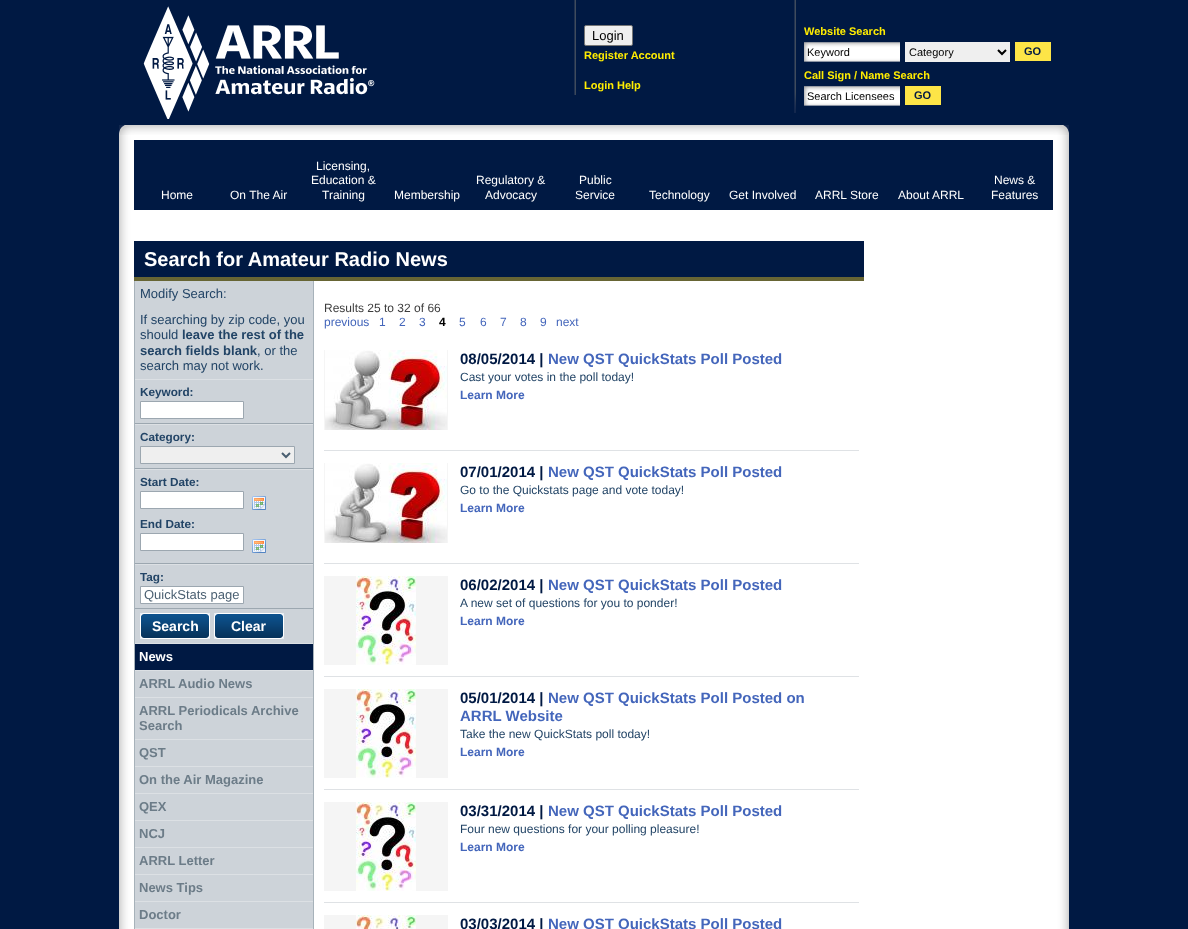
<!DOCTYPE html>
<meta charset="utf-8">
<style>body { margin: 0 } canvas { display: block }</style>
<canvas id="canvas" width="1188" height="929"></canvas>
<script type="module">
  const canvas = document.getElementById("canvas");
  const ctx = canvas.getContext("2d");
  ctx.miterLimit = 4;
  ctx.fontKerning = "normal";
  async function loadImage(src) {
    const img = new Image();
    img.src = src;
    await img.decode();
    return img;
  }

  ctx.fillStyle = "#001943";
  ctx.fillRect(0, 0, 1188, 929);
  ctx.drawImage(await loadImage("img1.png"), 143, 6, 232, 113);
  ctx.drawImage(await loadImage("img2.png"), 574, 0, 2, 95);
  ctx.fillStyle = "#efefef";
  ctx.beginPath();
  ctx.roundRect(584.5, 25.5, 48, 20, 1.5);
  ctx.fill();
  ctx.strokeStyle = "#767676";
  ctx.stroke();
  ctx.font = "13px Liberation Sans";
  ctx.fillStyle = "#000000";
  ctx.fillText("Login", 592, 40);
  ctx.font = "bold 11px Liberation Sans";
  ctx.fillStyle = "#ffed01";
  ctx.fillText("Register Account", 584, 59);
  ctx.fillText("Login Help", 584, 89);
  ctx.drawImage(await loadImage("img3.png"), 794, 0, 2, 113);
  ctx.fillText("Website Search", 804, 35);
  ctx.drawImage(await loadImage("img4.png"), 804, 42, 96, 20);
  ctx.font = "11px Liberation Sans";
  ctx.fillStyle = "#000000";
  ctx.fillText("Keyword", 807, 56);
  ctx.fillStyle = "#efefef";
  ctx.fillRect(905, 42, 105, 20);
  ctx.beginPath();
  ctx.moveTo(998, 50);
  ctx.lineTo(1002, 54);
  ctx.lineTo(1006, 50);
  ctx.strokeStyle = "#000000";
  ctx.lineWidth = 2;
  ctx.stroke();
  ctx.fillStyle = "#000000";
  ctx.fillText("Category", 909, 56);
  ctx.fillStyle = "#fde547";
  ctx.fillRect(1015, 42, 36, 19);
  ctx.font = "bold 11px Liberation Sans";
  ctx.fillStyle = "#001943";
  ctx.fillText("GO", 1024, 55);
  ctx.fillStyle = "#ffed01";
  ctx.fillText("Call Sign / Name Search", 804, 79);
  ctx.drawImage(await loadImage("img4.png"), 804, 86, 96, 20);
  ctx.font = "11px Liberation Sans";
  ctx.fillStyle = "#000000";
  ctx.fillText("Search Licensees", 807, 100);
  ctx.fillStyle = "#fde547";
  ctx.fillRect(905, 86, 36, 19);
  ctx.font = "bold 11px Liberation Sans";
  ctx.fillStyle = "#001943";
  ctx.fillText("GO", 914, 99);
  ctx.drawImage(await loadImage("img5.png"), 119, 135, 950, 794);
  ctx.drawImage(await loadImage("img6.png"), 119, 125, 950, 10);
  ctx.fillRect(134, 140, 919, 70);
  ctx.font = "12px Liberation Sans";
  ctx.fillStyle = "#ffffff";
  ctx.fillText("Home", 161, 199);
  ctx.fillText("On The Air", 230, 199);
  ctx.fillText("Licensing,", 316, 170);
  ctx.fillText("Education &", 311, 184);
  ctx.fillText("Training", 322, 199);
  ctx.fillText("Membership", 394, 199);
  ctx.fillText("Regulatory &", 476, 184);
  ctx.fillText("Advocacy", 485, 199);
  ctx.fillText("Public", 579, 184);
  ctx.fillText("Service", 575, 199);
  ctx.fillText("Technology", 649, 199);
  ctx.fillText("Get Involved", 729, 199);
  ctx.fillText("ARRL Store", 815, 199);
  ctx.fillText("About ARRL", 898, 199);
  ctx.fillText("News &", 994, 184);
  ctx.fillText("Features", 991, 199);
  ctx.fillStyle = "#001943";
  ctx.fillRect(134, 241, 730, 36);
  ctx.fillStyle = "#676534";
  ctx.fillRect(134, 277, 730, 4);
  ctx.font = "bold 20px Liberation Sans";
  ctx.fillStyle = "#ffffff";
  ctx.fillText("Search for Amateur Radio News", 144, 266);
  ctx.fillStyle = "#cdd3d9";
  ctx.fillRect(135, 281, 178, 647);
  ctx.fillStyle = "#a7b2ba";
  ctx.fillRect(313, 281, 1, 648);
  ctx.fillRect(134, 281, 1, 648);
  ctx.font = "13px Liberation Sans";
  ctx.fillStyle = "#224466";
  ctx.fillText("Modify Search:", 140, 298);
  ctx.fillText("If searching by zip code, you", 140, 324);
  ctx.fillText("should", 140, 339);
  ctx.font = "bold 13px Liberation Sans";
  ctx.fillText("leave the rest of the", 182, 339);
  ctx.fillText("search fields blank", 140, 355);
  ctx.font = "13px Liberation Sans";
  ctx.fillText(", or the", 257, 355);
  ctx.fillText("search may not work.", 140, 370);
  ctx.fillStyle = "#dce0e4";
  ctx.fillRect(135, 379, 178, 1);
  ctx.fillStyle = "#9ca7b0";
  ctx.fillRect(135, 423, 178, 1);
  ctx.font = "bold 11.75px Liberation Sans";
  ctx.fillStyle = "#224466";
  ctx.fillText("Keyword:", 140, 396);
  ctx.fillStyle = "#ffffff";
  ctx.beginPath();
  ctx.rect(140.5, 401.5, 103, 17);
  ctx.fill();
  ctx.strokeStyle = "#9ca7b0";
  ctx.lineWidth = 1;
  ctx.stroke();
  ctx.fillStyle = "#dce0e4";
  ctx.fillRect(135, 424, 178, 1);
  ctx.fillStyle = "#9ca7b0";
  ctx.fillRect(135, 468, 178, 1);
  ctx.fillStyle = "#224466";
  ctx.fillText("Category:", 140, 441);
  ctx.fillStyle = "#efefef";
  ctx.beginPath();
  ctx.rect(140.5, 446.5, 154, 17);
  ctx.fill();
  ctx.stroke();
  ctx.beginPath();
  ctx.moveTo(282, 453);
  ctx.lineTo(286, 457);
  ctx.lineTo(290, 453);
  ctx.strokeStyle = "#4a5f71";
  ctx.lineWidth = 2;
  ctx.stroke();
  ctx.fillStyle = "#dce0e4";
  ctx.fillRect(135, 469, 178, 1);
  ctx.fillStyle = "#9ca7b0";
  ctx.fillRect(135, 563, 178, 1);
  ctx.fillStyle = "#224466";
  ctx.fillText("Start Date:", 140, 486);
  ctx.fillStyle = "#ffffff";
  ctx.beginPath();
  ctx.rect(140.5, 491.5, 103, 17);
  ctx.fill();
  ctx.strokeStyle = "#9ca7b0";
  ctx.lineWidth = 1;
  ctx.stroke();
  ctx.drawImage(await loadImage("img7.png"), 252, 496, 14, 14);
  ctx.fillStyle = "#224466";
  ctx.fillText("End Date:", 140, 528);
  ctx.fillStyle = "#ffffff";
  ctx.beginPath();
  ctx.rect(140.5, 533.5, 103, 17);
  ctx.fill();
  ctx.stroke();
  ctx.drawImage(await loadImage("img7.png"), 252, 539, 14, 14);
  ctx.fillStyle = "#dce0e4";
  ctx.fillRect(135, 564, 178, 1);
  ctx.fillStyle = "#9ca7b0";
  ctx.fillRect(135, 608, 178, 1);
  ctx.fillStyle = "#224466";
  ctx.fillText("Tag:", 140, 581);
  ctx.fillStyle = "#ffffff";
  ctx.beginPath();
  ctx.rect(140.5, 586.5, 103, 17);
  ctx.fill();
  ctx.stroke();
  ctx.font = "13px Liberation Sans";
  ctx.fillStyle = "#4a5f71";
  ctx.fillText("QuickStats page", 144, 599);
  ctx.drawImage(await loadImage("img8.png"), 140, 613, 70, 26);
  ctx.font = "bold 14px Liberation Sans";
  ctx.fillStyle = "#ffffff";
  ctx.fillText("Search", 152, 631);
  ctx.drawImage(await loadImage("img8.png"), 214, 613, 70, 26);
  ctx.fillText("Clear", 231, 631);
  ctx.fillStyle = "#dce0e4";
  ctx.fillRect(135, 643, 178, 1);
  ctx.fillStyle = "#001943";
  ctx.fillRect(135, 644, 178, 26);
  ctx.font = "bold 13px Liberation Sans";
  ctx.fillStyle = "#ffffff";
  ctx.fillText("News", 139, 661);
  ctx.fillStyle = "#dce0e4";
  ctx.fillRect(135, 670, 178, 1);
  ctx.fillStyle = "#6c7c88";
  ctx.fillText("ARRL Audio News", 139, 688);
  ctx.fillStyle = "#dce0e4";
  ctx.fillRect(135, 697, 178, 1);
  ctx.fillStyle = "#6c7c88";
  ctx.fillText("ARRL Periodicals Archive", 139, 715);
  ctx.fillText("Search", 139, 730);
  ctx.fillStyle = "#dce0e4";
  ctx.fillRect(135, 739, 178, 1);
  ctx.fillStyle = "#6c7c88";
  ctx.fillText("QST", 139, 757);
  ctx.fillStyle = "#dce0e4";
  ctx.fillRect(135, 766, 178, 1);
  ctx.fillStyle = "#6c7c88";
  ctx.fillText("On the Air Magazine", 139, 784);
  ctx.fillStyle = "#dce0e4";
  ctx.fillRect(135, 793, 178, 1);
  ctx.fillStyle = "#6c7c88";
  ctx.fillText("QEX", 139, 811);
  ctx.fillStyle = "#dce0e4";
  ctx.fillRect(135, 820, 178, 1);
  ctx.fillStyle = "#6c7c88";
  ctx.fillText("NCJ", 139, 838);
  ctx.fillStyle = "#dce0e4";
  ctx.fillRect(135, 847, 178, 1);
  ctx.fillStyle = "#6c7c88";
  ctx.fillText("ARRL Letter", 139, 865);
  ctx.fillStyle = "#dce0e4";
  ctx.fillRect(135, 874, 178, 1);
  ctx.fillStyle = "#6c7c88";
  ctx.fillText("News Tips", 139, 892);
  ctx.fillStyle = "#dce0e4";
  ctx.fillRect(135, 901, 178, 1);
  ctx.fillStyle = "#6c7c88";
  ctx.fillText("Doctor", 139, 919);
  ctx.fillStyle = "#dce0e4";
  ctx.fillRect(135, 928, 178, 1);
  ctx.font = "12px Liberation Sans";
  ctx.fillStyle = "#3d3d3d";
  ctx.fillText("Results 25 to 32 of 66", 324, 312);
  ctx.fillStyle = "#4466bb";
  ctx.fillText("previous", 324, 326);
  ctx.fillText("1", 379, 326);
  ctx.fillText("2", 399, 326);
  ctx.fillText("3", 419, 326);
  ctx.font = "bold 12px Liberation Sans";
  ctx.fillStyle = "#000000";
  ctx.fillText("4", 439, 326);
  ctx.font = "12px Liberation Sans";
  ctx.fillStyle = "#4466bb";
  ctx.fillText("5", 459, 326);
  ctx.fillText("6", 480, 326);
  ctx.fillText("7", 500, 326);
  ctx.fillText("8", 520, 326);
  ctx.fillText("9", 540, 326);
  ctx.fillText("next", 556, 326);
  ctx.fillStyle = "#dfe2e5";
  ctx.fillRect(324, 450, 535, 1);
  ctx.fillStyle = "#f5f5f5";
  ctx.fillRect(324, 350, 124, 80);
  ctx.drawImage(await loadImage("img9.png"), 325, 350, 122, 80);
  ctx.font = "bold 15px Liberation Sans";
  ctx.fillStyle = "#001943";
  ctx.fillText("08/05/2014 |", 460, 364);
  ctx.fillStyle = "#4466bb";
  ctx.fillText("New QST QuickStats Poll Posted", 548, 364);
  ctx.font = "12px Liberation Sans";
  ctx.fillStyle = "#224466";
  ctx.fillText("Cast your votes in the poll today!", 460, 381);
  ctx.font = "bold 12px Liberation Sans";
  ctx.fillStyle = "#4466bb";
  ctx.fillText("Learn More", 460, 399);
  ctx.fillStyle = "#dfe2e5";
  ctx.fillRect(324, 563, 535, 1);
  ctx.fillStyle = "#f5f5f5";
  ctx.fillRect(324, 463, 124, 80);
  ctx.drawImage(await loadImage("img9.png"), 325, 463, 122, 80);
  ctx.font = "bold 15px Liberation Sans";
  ctx.fillStyle = "#001943";
  ctx.fillText("07/01/2014 |", 460, 477);
  ctx.fillStyle = "#4466bb";
  ctx.fillText("New QST QuickStats Poll Posted", 548, 477);
  ctx.font = "12px Liberation Sans";
  ctx.fillStyle = "#224466";
  ctx.fillText("Go to the Quickstats page and vote today!", 460, 494);
  ctx.font = "bold 12px Liberation Sans";
  ctx.fillStyle = "#4466bb";
  ctx.fillText("Learn More", 460, 512);
  ctx.fillStyle = "#dfe2e5";
  ctx.fillRect(324, 676, 535, 1);
  ctx.fillStyle = "#f5f5f5";
  ctx.fillRect(324, 576, 124, 89);
  ctx.drawImage(await loadImage("img10.png"), 356, 576, 60, 89);
  ctx.font = "bold 15px Liberation Sans";
  ctx.fillStyle = "#001943";
  ctx.fillText("06/02/2014 |", 460, 590);
  ctx.fillStyle = "#4466bb";
  ctx.fillText("New QST QuickStats Poll Posted", 548, 590);
  ctx.font = "12px Liberation Sans";
  ctx.fillStyle = "#224466";
  ctx.fillText("A new set of questions for you to ponder!", 460, 607);
  ctx.font = "bold 12px Liberation Sans";
  ctx.fillStyle = "#4466bb";
  ctx.fillText("Learn More", 460, 625);
  ctx.fillStyle = "#dfe2e5";
  ctx.fillRect(324, 789, 535, 1);
  ctx.fillStyle = "#f5f5f5";
  ctx.fillRect(324, 689, 124, 89);
  ctx.drawImage(await loadImage("img10.png"), 356, 689, 60, 89);
  ctx.font = "bold 15px Liberation Sans";
  ctx.fillStyle = "#001943";
  ctx.fillText("05/01/2014 |", 460, 703);
  ctx.fillStyle = "#4466bb";
  ctx.fillText("New QST QuickStats Poll Posted on", 548, 703);
  ctx.fillText("ARRL Website", 460, 721);
  ctx.font = "12px Liberation Sans";
  ctx.fillStyle = "#224466";
  ctx.fillText("Take the new QuickStats poll today!", 460, 738);
  ctx.font = "bold 12px Liberation Sans";
  ctx.fillStyle = "#4466bb";
  ctx.fillText("Learn More", 460, 756);
  ctx.fillStyle = "#dfe2e5";
  ctx.fillRect(324, 902, 535, 1);
  ctx.fillStyle = "#f5f5f5";
  ctx.fillRect(324, 802, 124, 89);
  ctx.drawImage(await loadImage("img10.png"), 356, 802, 60, 89);
  ctx.font = "bold 15px Liberation Sans";
  ctx.fillStyle = "#001943";
  ctx.fillText("03/31/2014 |", 460, 816);
  ctx.fillStyle = "#4466bb";
  ctx.fillText("New QST QuickStats Poll Posted", 548, 816);
  ctx.font = "12px Liberation Sans";
  ctx.fillStyle = "#224466";
  ctx.fillText("Four new questions for your polling pleasure!", 460, 833);
  ctx.font = "bold 12px Liberation Sans";
  ctx.fillStyle = "#4466bb";
  ctx.fillText("Learn More", 460, 851);
  ctx.fillStyle = "#f5f5f5";
  ctx.fillRect(324, 915, 124, 14);
  ctx.drawImage(await loadImage("img11.png"), 356, 915, 60, 14);
  ctx.font = "bold 15px Liberation Sans";
  ctx.fillStyle = "#001943";
  ctx.fillText("03/03/2014 |", 460, 929);
  ctx.fillStyle = "#4466bb";
  ctx.fillText("New QST QuickStats Poll Posted", 548, 929);
</script>
